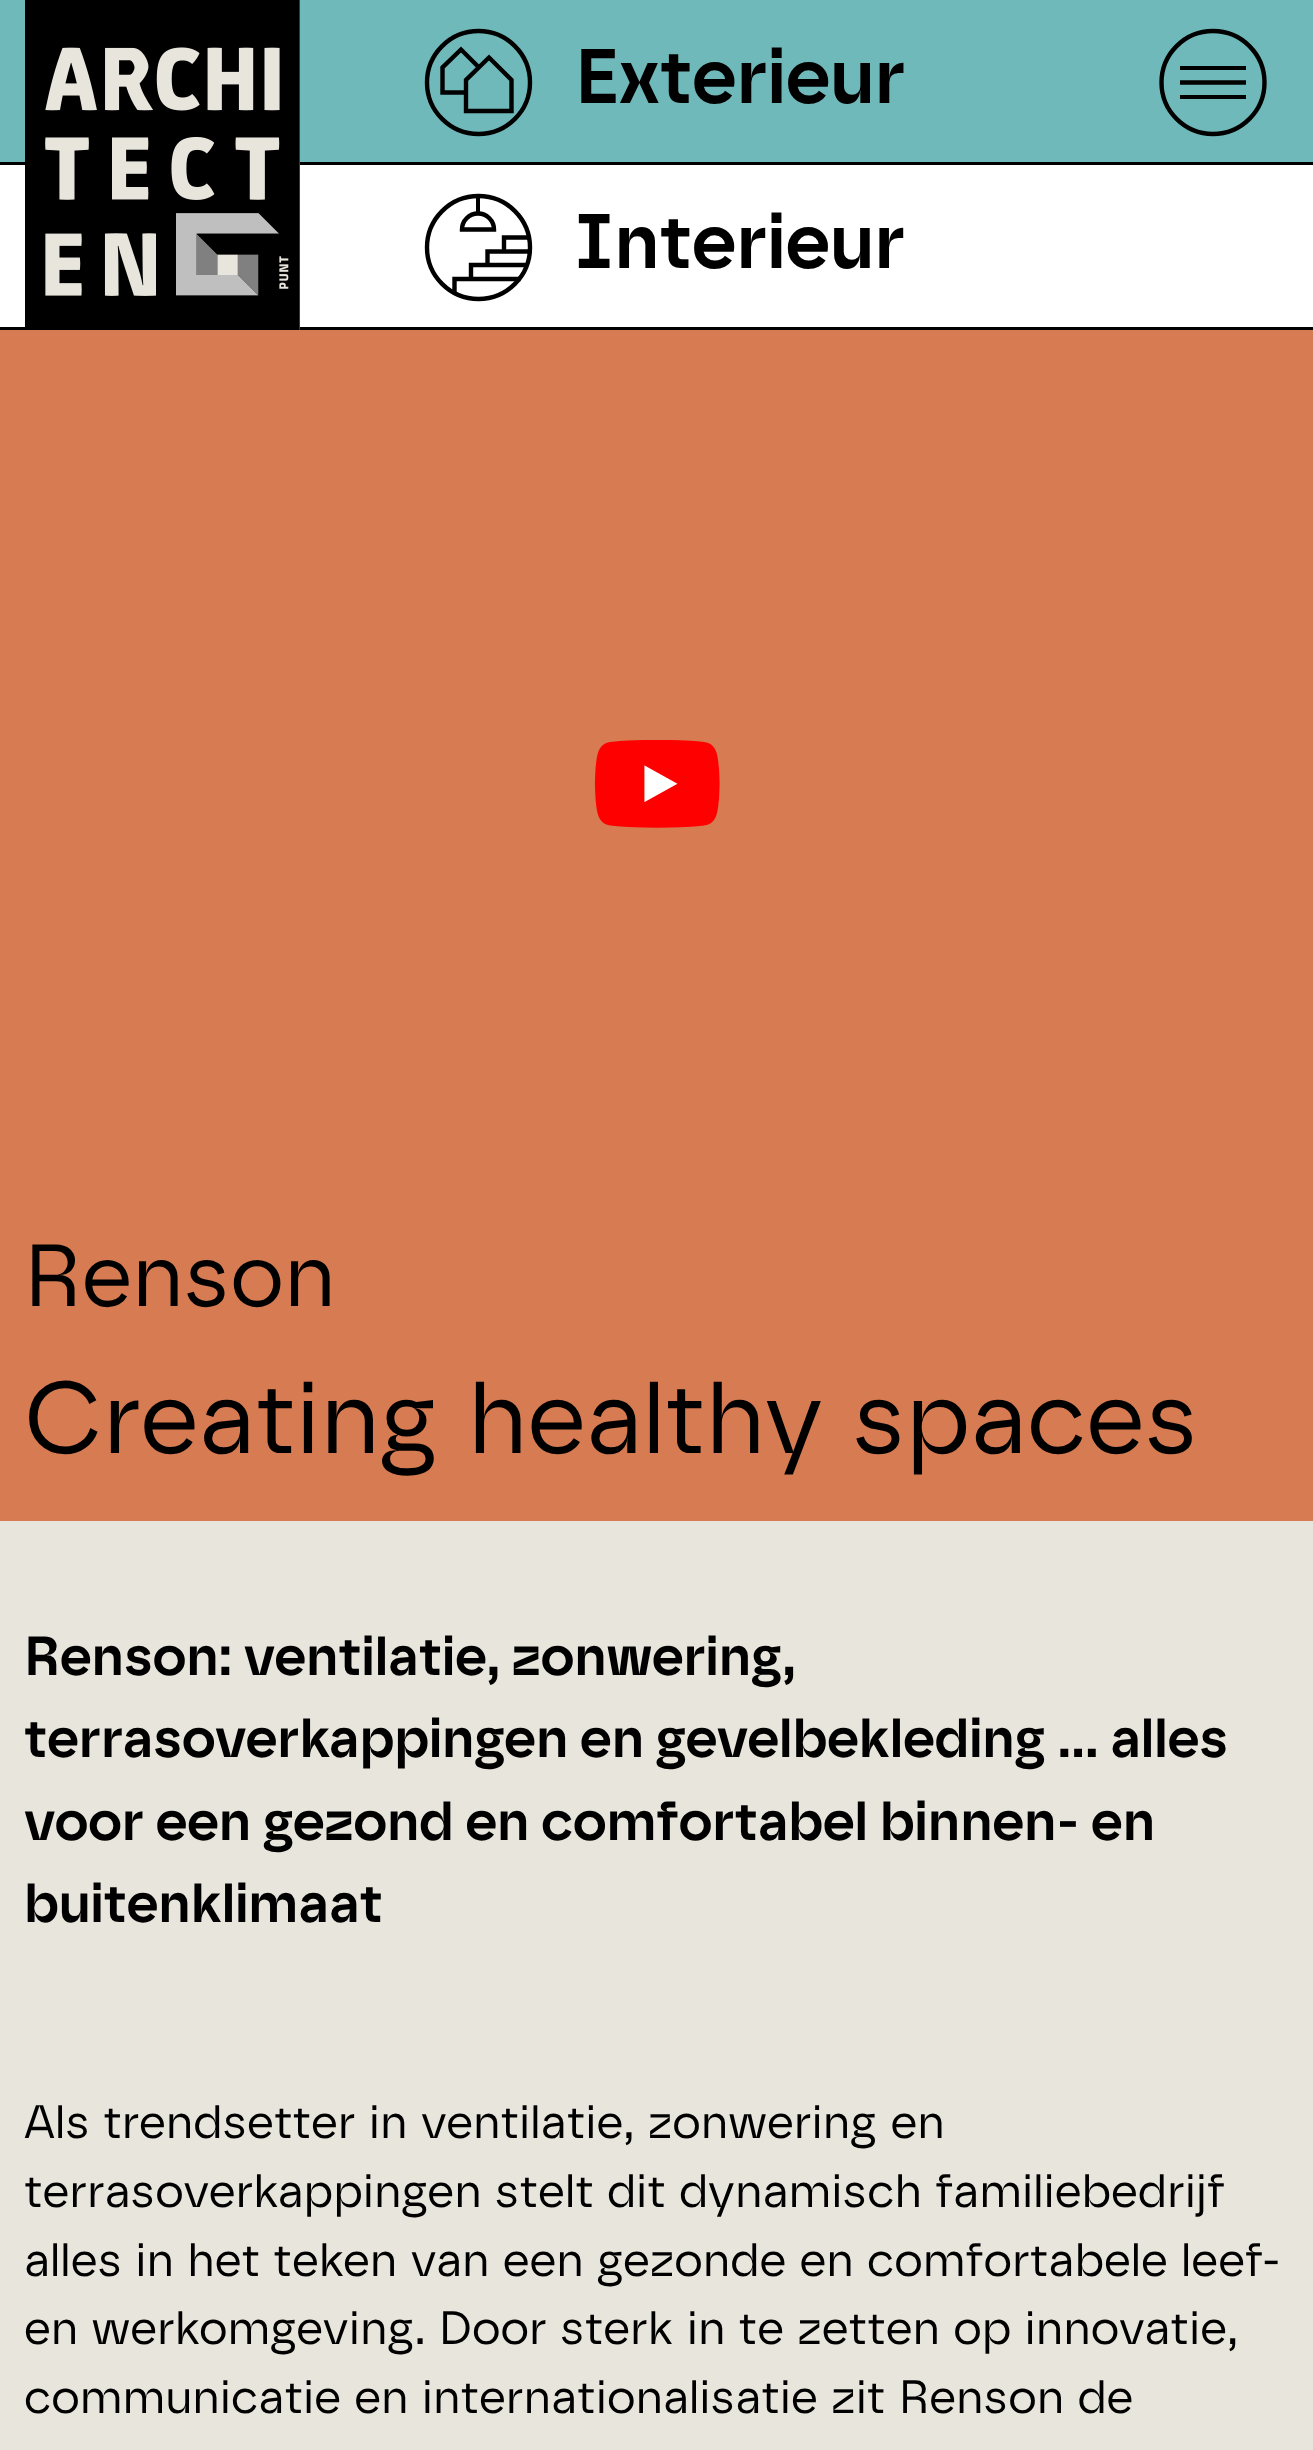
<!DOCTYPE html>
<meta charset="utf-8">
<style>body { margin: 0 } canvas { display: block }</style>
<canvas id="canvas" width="1313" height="2450"></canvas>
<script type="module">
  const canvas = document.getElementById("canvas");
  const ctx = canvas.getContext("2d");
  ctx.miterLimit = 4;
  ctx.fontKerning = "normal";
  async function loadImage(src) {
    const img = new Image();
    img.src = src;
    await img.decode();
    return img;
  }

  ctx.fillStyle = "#d77b52";
  ctx.fillRect(0, 0, 1313, 2450);
  ctx.fillStyle = "#70b9ba";
  ctx.fillRect(0, 0, 1313, 162);
  ctx.fillStyle = "#000000";
  ctx.fillRect(0, 162, 1313, 3);
  ctx.fillStyle = "#ffffff";
  ctx.fillRect(0, 165, 1313, 162);
  ctx.fillStyle = "#000000";
  ctx.fillRect(0, 327, 1313, 3);
  ctx.fillStyle = "#e8e5dc";
  ctx.fillRect(45, 0, 255, 330);
  ctx.drawImage(await loadImage("img1.png"), 25, 0, 275, 330);
  ctx.beginPath();
  ctx.arc(1213, 82.5, 51.5, 0, Math.PI * 2);
  ctx.strokeStyle = "#000000";
  ctx.lineWidth = 4.4;
  ctx.stroke();
  ctx.fillStyle = "#000000";
  ctx.fillRect(1180, 66, 66, 4);
  ctx.beginPath();
  ctx.moveTo(1180, 82.5);
  ctx.lineTo(1246, 82.5);
  ctx.stroke();
  ctx.fillRect(1180, 95, 66, 4);
  ctx.beginPath();
  ctx.moveTo(498.5, 111);
  ctx.lineTo(466, 111);
  ctx.lineTo(466, 80);
  ctx.lineTo(489, 57.5);
  ctx.lineTo(511.5, 80);
  ctx.lineTo(511.5, 111);
  ctx.closePath();
  ctx.stroke();
  ctx.beginPath();
  ctx.moveTo(466, 92.5);
  ctx.lineTo(442.5, 92.5);
  ctx.lineTo(442.5, 67.5);
  ctx.lineTo(461, 49.5);
  ctx.lineTo(479, 67.5);
  ctx.stroke();
  ctx.beginPath();
  ctx.arc(478.5, 82.5, 51.5, 0, Math.PI * 2);
  ctx.stroke();
  ctx.font = "600 77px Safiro";
  ctx.fillText("Exterieur", 575, 103);
  ctx.beginPath();
  ctx.arc(478.5, 247.5, 51.5, 0, Math.PI * 2);
  ctx.stroke();
  ctx.beginPath();
  ctx.moveTo(494, 229.5);
  ctx.lineTo(462, 229.5);
  ctx.bezierCurveTo(462, 221, 469, 213.5, 478, 213.5);
  ctx.bezierCurveTo(487, 213.5, 494, 221, 494, 229.5);
  ctx.closePath();
  ctx.stroke();
  ctx.fillRect(476, 196, 4, 18);
  ctx.beginPath();
  ctx.moveTo(454.5, 292.5);
  ctx.lineTo(454.5, 279);
  ctx.lineTo(520.5, 279);
  ctx.stroke();
  ctx.beginPath();
  ctx.moveTo(471, 279);
  ctx.lineTo(471, 265);
  ctx.lineTo(527, 265);
  ctx.moveTo(487.5, 265);
  ctx.lineTo(487.5, 251.5);
  ctx.lineTo(530.5, 251.5);
  ctx.moveTo(504, 251.5);
  ctx.lineTo(504, 237.5);
  ctx.lineTo(530.5, 237.5);
  ctx.stroke();
  ctx.fillText("Interieur", 574, 268);
  ctx.drawImage(await loadImage("img2.png"), 594, 740, 126, 88);
  ctx.font = "88px Safiro";
  ctx.fillText("Renson", 24, 1306);
  ctx.font = "101.75px Safiro";
  ctx.fillText("Creating healthy spaces", 24, 1453);
  ctx.fillStyle = "#e8e5dc";
  ctx.fillRect(0, 1521, 1313, 929);
  ctx.font = "600 55px Safiro";
  ctx.fillStyle = "#000000";
  ctx.fillText("Renson: ventilatie, zonwering,", 24, 1675);
  ctx.fillText("terrasoverkappingen en gevelbekleding ... alles", 24, 1757);
  ctx.fillText("voor een gezond en comfortabel binnen- en", 24, 1840);
  ctx.fillText("buitenklimaat", 24, 1922);
  ctx.font = "46.75px Safiro";
  ctx.fillText("Als trendsetter in ventilatie, zonwering en", 24, 2138);
  ctx.fillText("terrasoverkappingen stelt dit dynamisch familiebedrijf", 24, 2207);
  ctx.fillText("alles in het teken van een gezonde en comfortabele leef-", 24, 2276);
  ctx.fillText("en werkomgeving. Door sterk in te zetten op innovatie,", 24, 2344);
  ctx.fillText("communicatie en internationalisatie zit Renson de", 24, 2413);
</script>
